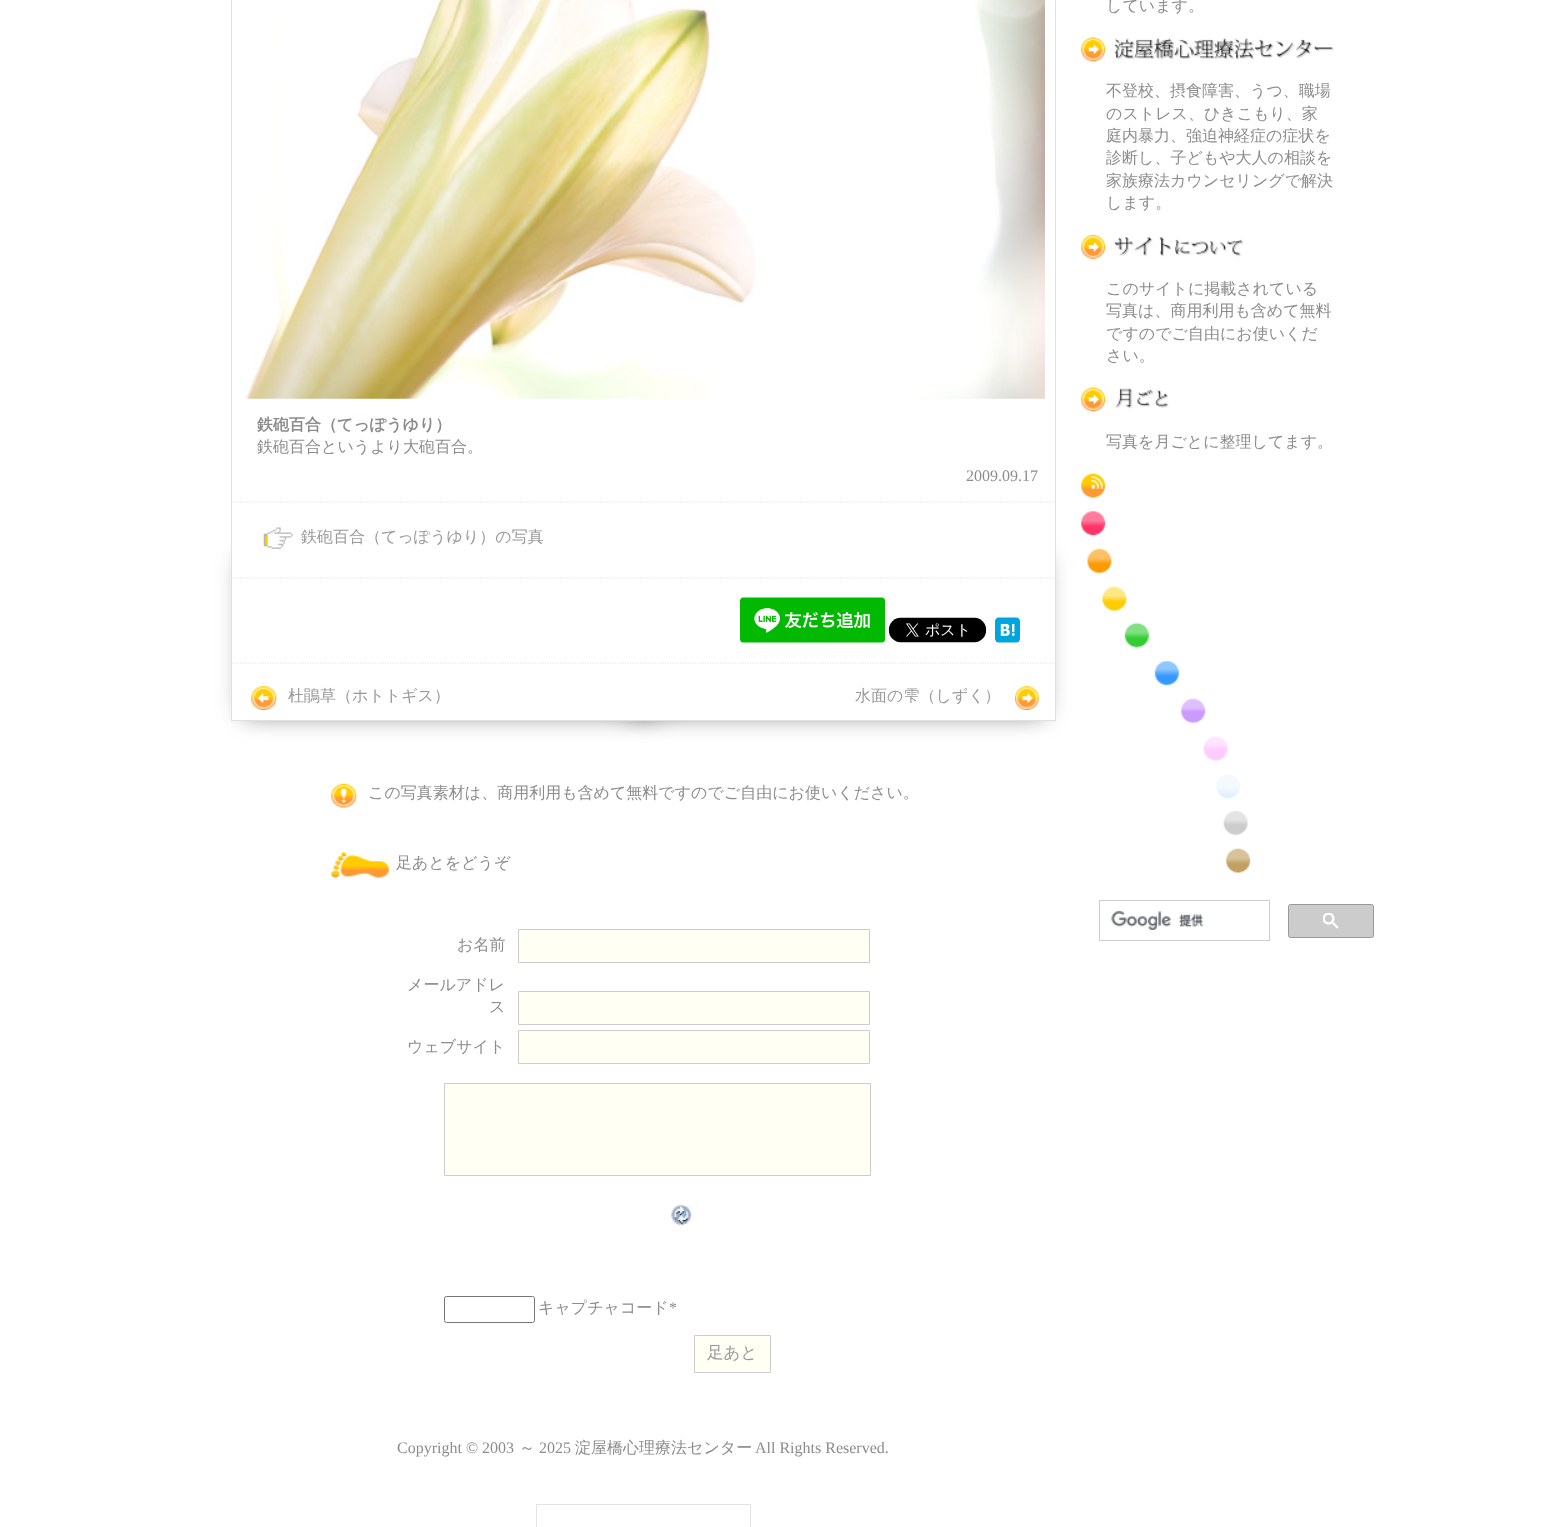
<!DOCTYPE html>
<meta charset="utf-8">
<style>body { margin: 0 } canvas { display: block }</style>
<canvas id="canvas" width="1563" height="1527"></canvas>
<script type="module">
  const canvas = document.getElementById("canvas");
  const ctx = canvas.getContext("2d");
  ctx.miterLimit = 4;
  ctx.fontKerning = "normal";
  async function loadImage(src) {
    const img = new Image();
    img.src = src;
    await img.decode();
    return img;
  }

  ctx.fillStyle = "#ffffff";
  ctx.fillRect(0, 0, 1563, 1527);
  ctx.font = "500 16px WenQuanYi Zen Hei";
  ctx.fillStyle = "#8c8c8c";
  ctx.fillText("しています。", 1106, 11);
  ctx.drawImage(await loadImage("img1.png"), 1081, 37, 253, 25);
  ctx.fillText("不登校、摂食障害、うつ、職場", 1106, 96);
  ctx.fillText("のストレス、ひきこもり、家", 1106, 119);
  ctx.fillText("庭内暴力、強迫神経症の症状を", 1106, 141);
  ctx.fillText("診断し、子どもや大人の相談を", 1106, 163);
  ctx.fillText("家族療法カウンセリングで解決", 1106, 186);
  ctx.fillText("します。", 1106, 208);
  ctx.drawImage(await loadImage("img2.png"), 1081, 234, 163, 25);
  ctx.fillText("このサイトに掲載されている", 1106, 294);
  ctx.fillText("写真は、商用利用も含めて無料", 1106, 316);
  ctx.fillText("ですのでご自由にお使いくだ", 1106, 339);
  ctx.fillText("さい。", 1106, 361);
  ctx.drawImage(await loadImage("img3.png"), 1081, 387, 88, 25);
  ctx.fillText("写真を月ごとに整理してます。", 1106, 447);
  ctx.drawImage(await loadImage("img4.png"), 1081, 473, 25, 25);
  ctx.fillStyle = "#666666";
  ctx.filter = "blur(12.5px)";
  ctx.beginPath();
  ctx.rect(631, 558, 412, 156);
  ctx.fill();
  ctx.filter = "none";
  ctx.drawImage(await loadImage("img5.png"), 1081, 511, 25, 25);
  ctx.drawImage(await loadImage("img6.png"), 1087, 548, 25, 26);
  ctx.drawImage(await loadImage("img7.png"), 1102, 586, 25, 26);
  ctx.drawImage(await loadImage("img8.png"), 1124, 622, 25, 26);
  ctx.drawImage(await loadImage("img9.png"), 1154, 661, 25, 25);
  ctx.drawImage(await loadImage("img10.png"), 1181, 698, 25, 25);
  ctx.drawImage(await loadImage("img11.png"), 1203, 736, 25, 26);
  ctx.drawImage(await loadImage("img12.png"), 1216, 774, 24, 25);
  ctx.drawImage(await loadImage("img13.png"), 1223, 810, 25, 26);
  ctx.drawImage(await loadImage("img14.png"), 1226, 848, 25, 25);
  ctx.strokeStyle = "#cccccc";
  ctx.strokeRect(1099.5, 900.5, 170, 40);
  ctx.drawImage(await loadImage("img15.png"), 1111, 911, 93, 19);
  ctx.fillStyle = "#cccccc";
  ctx.beginPath();
  ctx.roundRect(1288.5, 904.5, 85, 33, 2);
  ctx.fill();
  ctx.strokeStyle = "#999999";
  ctx.stroke();
  ctx.drawImage(await loadImage("img16.png"), 1323, 913, 16, 16);
  ctx.fillStyle = "#666666";
  ctx.filter = "blur(12.5px)";
  ctx.beginPath();
  ctx.rect(244, 558, 411, 156);
  ctx.fill();
  ctx.filter = "none";
  ctx.fillStyle = "#ffffff";
  ctx.fillRect(232, 529, 823, 191);
  ctx.strokeStyle = "#e0e0e0";
  ctx.strokeRect(231.5, -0.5, 824, 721);
  ctx.drawImage(await loadImage("img17.png"), 245, 0, 800, 399);
  ctx.font = "bold 16px WenQuanYi Zen Hei";
  ctx.fillStyle = "#8c8c8c";
  ctx.fillText("鉄砲百合（てっぽうゆり）", 257, 430);
  ctx.font = "500 16px WenQuanYi Zen Hei";
  ctx.fillText("鉄砲百合というより大砲百合。", 257, 452);
  ctx.font = "16px Liberation Serif";
  ctx.fillText("2009.09.17", 966, 481);
  ctx.beginPath();
  ctx.moveTo(232.5, 502);
  ctx.lineTo(1057.5, 502);
  ctx.strokeStyle = "#e4e4e4";
  ctx.lineWidth = 1.2;
  ctx.setLineDash([1.25, 1.25]);
  ctx.stroke();
  ctx.drawImage(await loadImage("img18.png"), 263, 527, 30, 22);
  ctx.font = "500 16px WenQuanYi Zen Hei";
  ctx.fillStyle = "#999999";
  ctx.fillText("鉄砲百合（てっぽうゆり）の写真", 301, 542);
  ctx.beginPath();
  ctx.moveTo(232.5, 578);
  ctx.lineTo(1057.5, 578);
  ctx.stroke();
  ctx.drawImage(await loadImage("img19.png"), 740, 597, 145, 46);
  ctx.drawImage(await loadImage("img20.png"), 888, 617, 99, 26);
  ctx.drawImage(await loadImage("img21.png"), 995, 617, 25, 26);
  ctx.beginPath();
  ctx.moveTo(232.5, 663);
  ctx.lineTo(1057.5, 663);
  ctx.stroke();
  ctx.drawImage(await loadImage("img22.png"), 251, 686, 26, 24);
  ctx.fillText("杜鵑草（ホトトギス）", 288, 701);
  ctx.drawImage(await loadImage("img23.png"), 1015, 686, 24, 24);
  ctx.fillText("水面の雫（しずく）", 855, 701);
  ctx.drawImage(await loadImage("img24.png"), 331, 783, 26, 25);
  ctx.fillStyle = "#8c8c8c";
  ctx.fillText("この写真素材は、商用利用も含めて無料ですのでご自由にお使いください。", 368, 798);
  ctx.drawImage(await loadImage("img25.png"), 331, 852, 58, 26);
  ctx.fillText("足あとをどうぞ", 396, 868);
  ctx.fillText("お名前", 457, 950);
  ctx.fillStyle = "#fffff4";
  ctx.beginPath();
  ctx.rect(518.5, 929.5, 351, 33);
  ctx.fill();
  ctx.strokeStyle = "#cccccc";
  ctx.lineWidth = 1;
  ctx.setLineDash([]);
  ctx.stroke();
  ctx.fillStyle = "#8c8c8c";
  ctx.fillText("メールアドレ", 407, 990);
  ctx.fillText("ス", 489, 1012);
  ctx.fillStyle = "#fffff4";
  ctx.beginPath();
  ctx.rect(518.5, 991.5, 351, 33);
  ctx.fill();
  ctx.stroke();
  ctx.fillStyle = "#8c8c8c";
  ctx.fillText("ウェブサイト", 407, 1052);
  ctx.fillStyle = "#fffff4";
  ctx.beginPath();
  ctx.rect(518.5, 1030.5, 351, 33);
  ctx.fill();
  ctx.stroke();
  ctx.beginPath();
  ctx.rect(444.5, 1083.5, 426, 92);
  ctx.fill();
  ctx.stroke();
  ctx.drawImage(await loadImage("img26.png"), 671, 1204, 21, 22);
  ctx.beginPath();
  ctx.roundRect(444.5, 1296.5, 90, 26, 2);
  ctx.strokeStyle = "#767676";
  ctx.stroke();
  ctx.fillStyle = "#8c8c8c";
  ctx.fillText("キャプチャコード", 538, 1313);
  ctx.font = "16px Liberation Serif";
  ctx.fillText("*", 669, 1313);
  ctx.fillStyle = "#fffff4";
  ctx.beginPath();
  ctx.rect(694.5, 1335.5, 76, 37);
  ctx.fill();
  ctx.strokeStyle = "#cccccc";
  ctx.stroke();
  ctx.font = "500 16.5px WenQuanYi Zen Hei";
  ctx.fillStyle = "#999999";
  ctx.fillText("足あと", 707, 1358);
  ctx.font = "16px Liberation Serif";
  ctx.fillStyle = "#8c8c8c";
  ctx.fillText("Copyright © 2003", 397, 1453);
  ctx.font = "500 16px WenQuanYi Zen Hei";
  ctx.fillText("～", 519, 1453);
  ctx.font = "16px Liberation Serif";
  ctx.fillText("2025", 539, 1453);
  ctx.font = "500 16px WenQuanYi Zen Hei";
  ctx.fillText("淀屋橋心理療法センター", 575, 1453);
  ctx.font = "16px Liberation Serif";
  ctx.fillText("All Rights Reserved.", 755, 1453);
  ctx.strokeStyle = "#e3e3e3";
  ctx.strokeRect(536.5, 1504.5, 214, 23);
</script>
